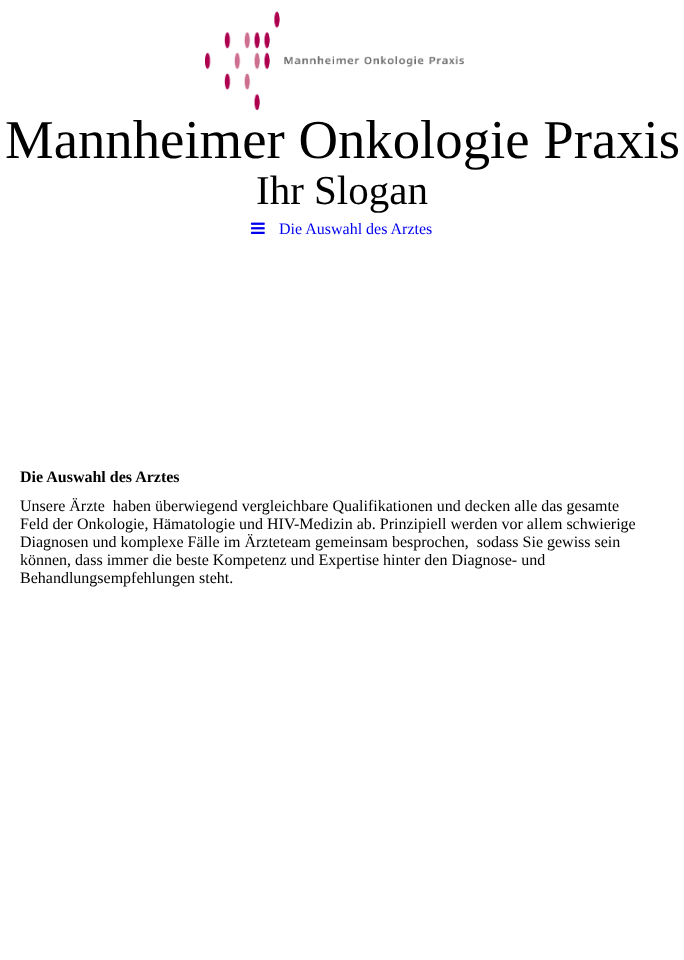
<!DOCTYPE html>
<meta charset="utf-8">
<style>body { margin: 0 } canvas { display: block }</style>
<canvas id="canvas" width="684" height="960"></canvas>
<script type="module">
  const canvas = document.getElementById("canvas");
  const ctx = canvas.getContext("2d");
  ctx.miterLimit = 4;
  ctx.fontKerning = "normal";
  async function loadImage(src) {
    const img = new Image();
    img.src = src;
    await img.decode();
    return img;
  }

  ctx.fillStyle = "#ffffff";
  ctx.fillRect(0, 0, 684, 960);
  ctx.drawImage(await loadImage("img1.png"), 205, 11, 259, 99);
  ctx.font = "54.75px Liberation Serif";
  ctx.fillStyle = "#000000";
  ctx.fillText("Mannheimer Onkologie Praxis", 5, 158);
  ctx.font = "41px Liberation Serif";
  ctx.fillText("Ihr Slogan", 256, 204);
  ctx.drawImage(await loadImage("img2.png"), 251, 222, 14, 12);
  ctx.font = "16px Liberation Serif";
  ctx.fillStyle = "#0000ee";
  ctx.fillText("Die Auswahl des Arztes", 279, 234);
  ctx.font = "bold 16px Liberation Serif";
  ctx.fillStyle = "#000000";
  ctx.fillText("Die Auswahl des Arztes", 20, 482);
  ctx.font = "16px Liberation Serif";
  ctx.fillText("Unsere Ärzte  haben überwiegend vergleichbare Qualifikationen und decken alle das gesamte", 20, 511);
  ctx.fillText("Feld der Onkologie, Hämatologie und HIV-Medizin ab. Prinzipiell werden vor allem schwierige", 20, 529);
  ctx.fillText("Diagnosen und komplexe Fälle im Ärzteteam gemeinsam besprochen,  sodass Sie gewiss sein", 20, 547);
  ctx.fillText("können, dass immer die beste Kompetenz und Expertise hinter den Diagnose- und", 20, 565);
  ctx.fillText("Behandlungsempfehlungen steht.", 20, 583);
</script>
